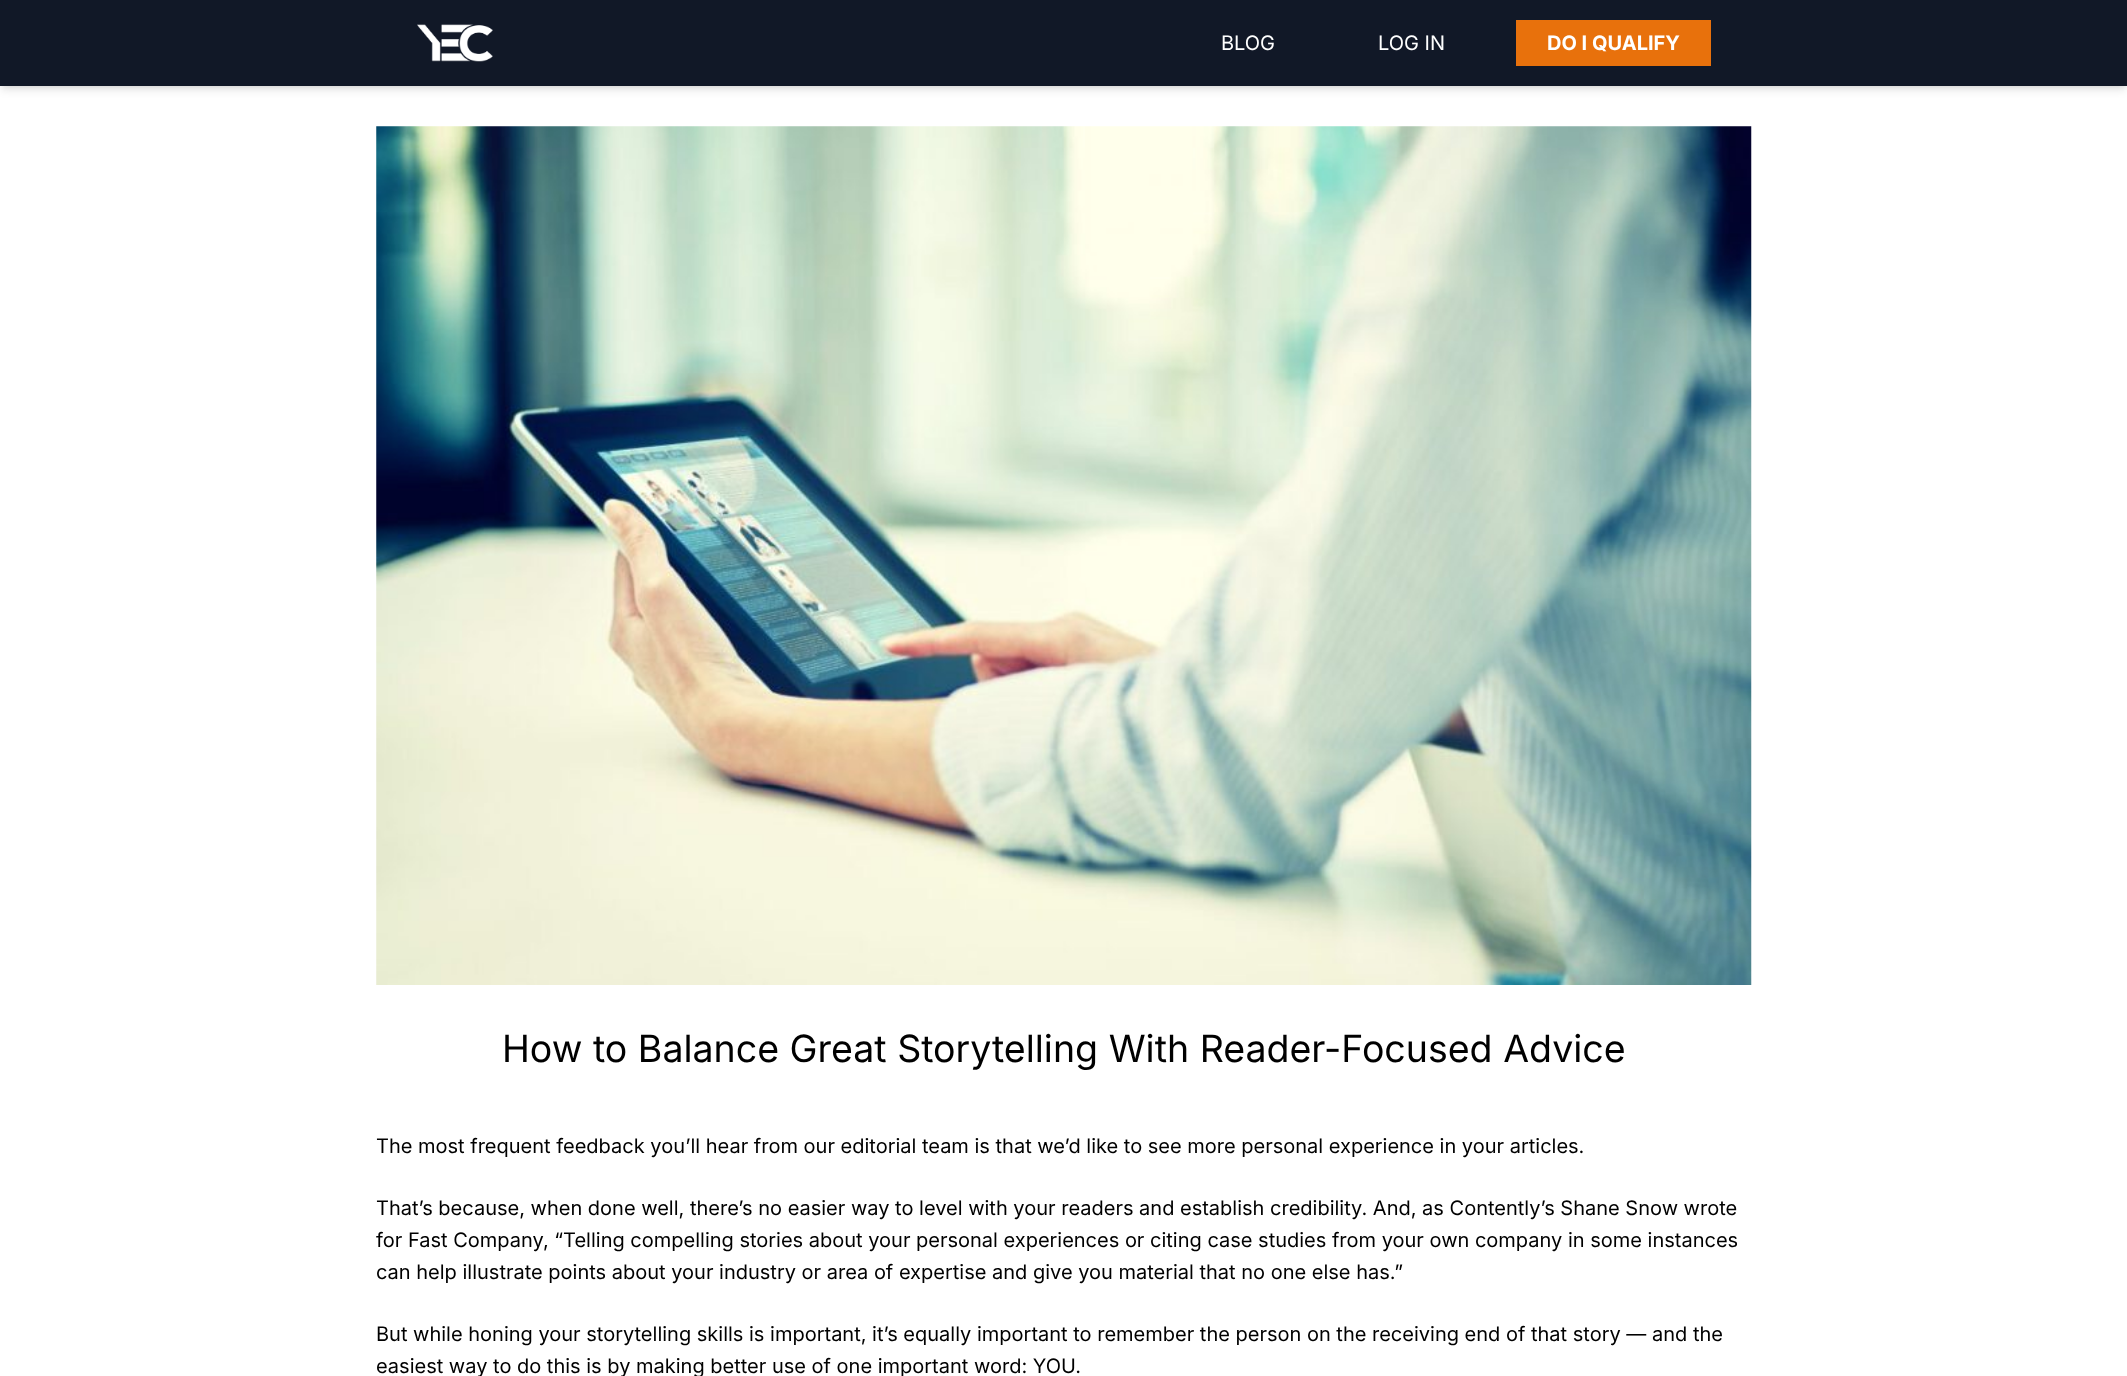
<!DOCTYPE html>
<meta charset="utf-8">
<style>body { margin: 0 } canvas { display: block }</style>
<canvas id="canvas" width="2127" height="1376"></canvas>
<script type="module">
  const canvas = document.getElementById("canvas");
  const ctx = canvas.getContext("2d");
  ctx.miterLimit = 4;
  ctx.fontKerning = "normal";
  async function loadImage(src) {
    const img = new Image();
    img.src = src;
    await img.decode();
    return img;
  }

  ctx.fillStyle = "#ffffff";
  ctx.fillRect(0, 0, 2127, 1376);
  ctx.fillStyle = "rgba(0, 0, 0, 0.1)";
  ctx.filter = "blur(2.5px)";
  ctx.beginPath();
  ctx.rect(3, 5, 2122, 81);
  ctx.fill();
  ctx.filter = "none";
  ctx.filter = "blur(4px)";
  ctx.beginPath();
  ctx.rect(1, 6, 2125, 84);
  ctx.fill();
  ctx.filter = "none";
  ctx.fillStyle = "#111827";
  ctx.fillRect(0, 0, 2127, 86);
  ctx.drawImage(await loadImage("img1.png"), 417, 24, 76, 38);
  ctx.font = "20px Inter";
  ctx.fillStyle = "#ffffff";
  ctx.fillText("BLOG", 1221, 50);
  ctx.fillText("LOG IN", 1378, 50);
  ctx.fillStyle = "#e8710c";
  ctx.fillRect(1516, 20, 195, 46);
  ctx.font = "bold 20px Inter";
  ctx.fillStyle = "#ffffff";
  ctx.fillText("DO I QUALIFY", 1547, 50);
  ctx.drawImage(await loadImage("img2.png"), 376, 126, 1376, 859);
  ctx.font = "37.5px Inter";
  ctx.fillStyle = "#000000";
  ctx.fillText("How to Balance Great Storytelling With Reader-Focused Advice", 502, 1062);
  ctx.font = "20px Inter";
  ctx.fillText("The most frequent feedback you’ll hear from our editorial team is that we’d like to see more personal experience in your articles.", 376, 1153);
  ctx.fillText("That’s because, when done well, there’s no easier way to level with your readers and establish credibility. And, as Contently’s Shane Snow wrote", 376, 1215);
  ctx.fillText("for Fast Company, “Telling compelling stories about your personal experiences or citing case studies from your own company in some instances", 376, 1247);
  ctx.fillText("can help illustrate points about your industry or area of expertise and give you material that no one else has.”", 376, 1279);
  ctx.fillText("But while honing your storytelling skills is important, it’s equally important to remember the person on the receiving end of that story — and the", 376, 1341);
  ctx.fillText("easiest way to do this is by making better use of one important word: YOU.", 376, 1373);
</script>
